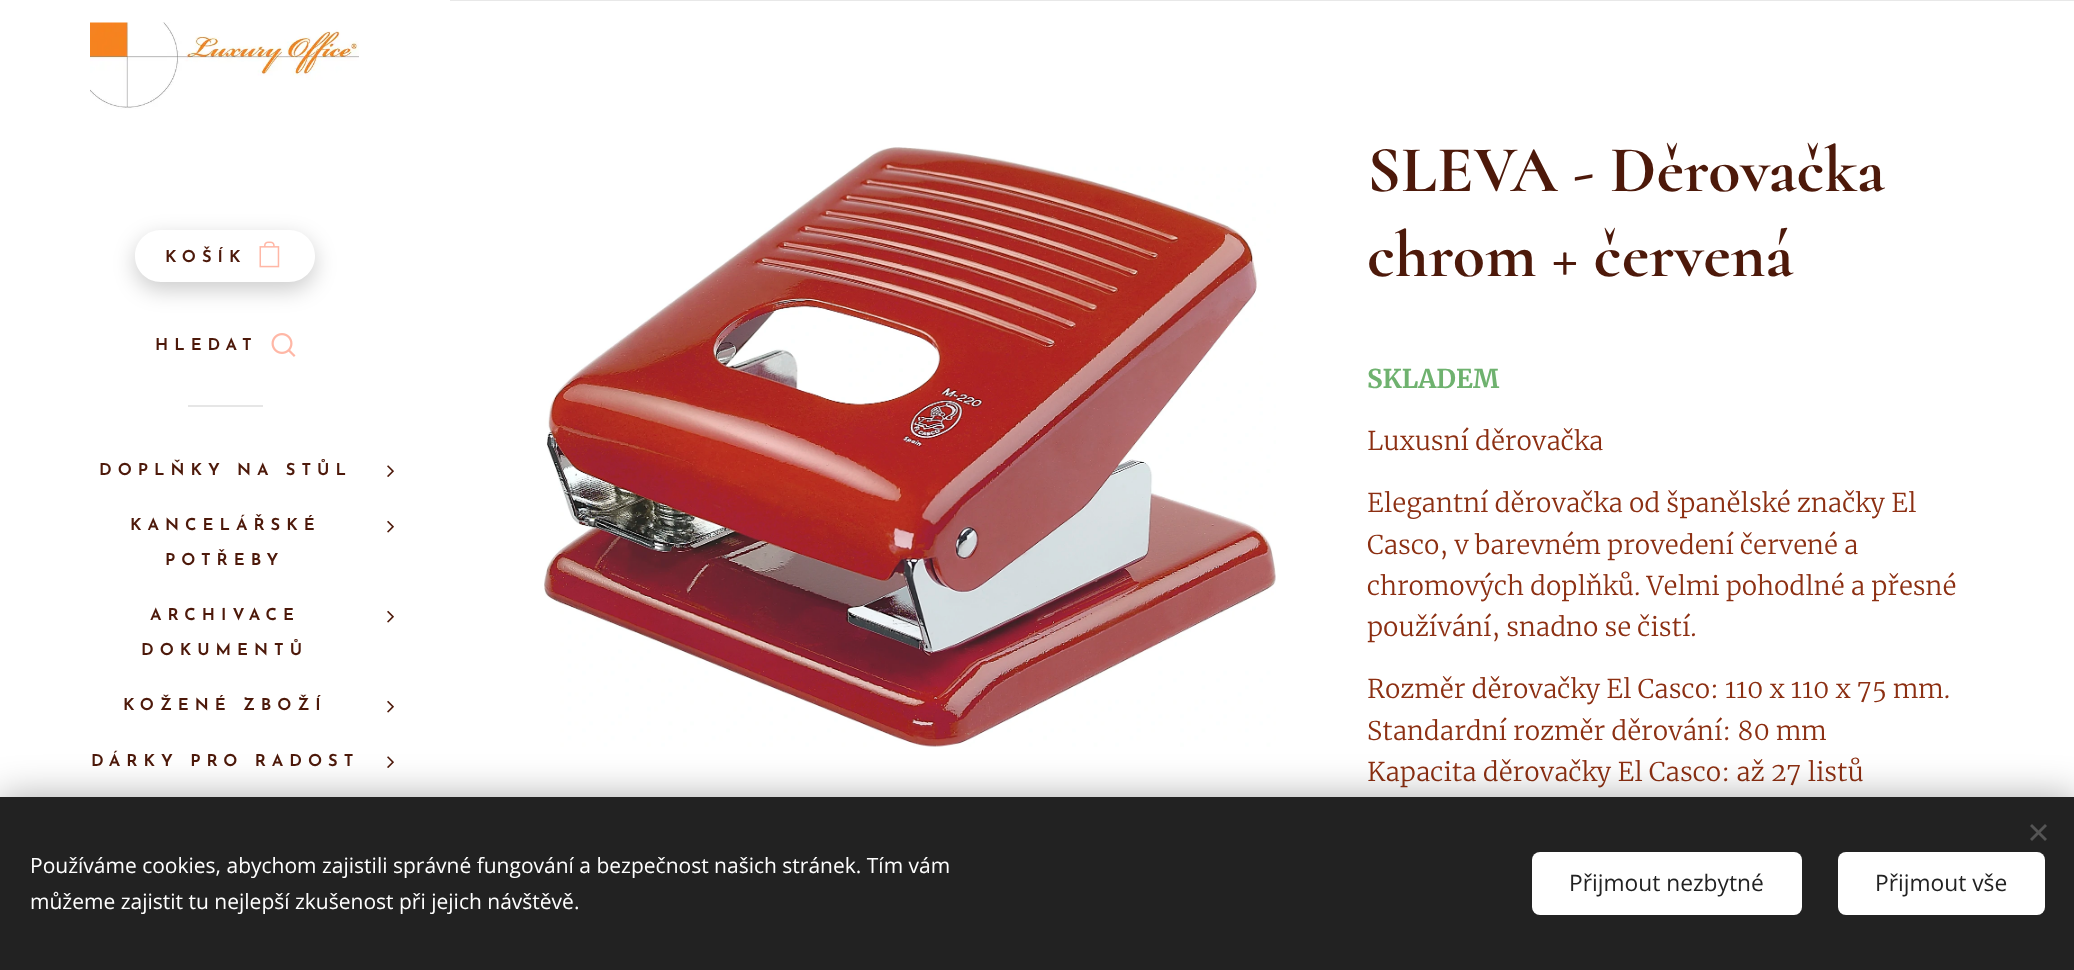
<!DOCTYPE html>
<meta charset="utf-8">
<style>body { margin: 0 } canvas { display: block }</style>
<canvas id="canvas" width="2074" height="970"></canvas>
<script type="module">
  const canvas = document.getElementById("canvas");
  const ctx = canvas.getContext("2d");
  ctx.miterLimit = 4;
  ctx.fontKerning = "normal";
  async function loadImage(src) {
    const img = new Image();
    img.src = src;
    await img.decode();
    return img;
  }

  ctx.fillStyle = "#ffffff";
  ctx.fillRect(0, 0, 2074, 970);
  ctx.drawImage(await loadImage("img1.png"), 90, 22, 269, 87);
  ctx.save();
  ctx.beginPath();
  ctx.moveTo(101, 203);
  ctx.lineTo(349, 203);
  ctx.lineTo(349, 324);
  ctx.lineTo(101, 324);
  ctx.closePath();
  ctx.moveTo(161, 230);
  ctx.lineTo(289, 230);
  ctx.bezierCurveTo(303.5, 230, 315, 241.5, 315, 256);
  ctx.bezierCurveTo(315, 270.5, 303.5, 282, 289, 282);
  ctx.lineTo(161, 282);
  ctx.bezierCurveTo(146.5, 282, 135, 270.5, 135, 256);
  ctx.bezierCurveTo(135, 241.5, 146.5, 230, 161, 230);
  ctx.closePath();
  ctx.clip("evenodd");
  ctx.fillStyle = "rgba(0, 0, 0, 0.2)";
  ctx.filter = "blur(11px)";
  ctx.beginPath();
  ctx.roundRect(135, 237, 180, 53, 26);
  ctx.fill();
  ctx.filter = "none";
  ctx.restore();
  ctx.letterSpacing = "6px";
  ctx.font = "600 16.5px Josefin Sans";
  ctx.fillStyle = "#4d190a";
  ctx.fillText("KOŠÍK", 165, 262);
  ctx.drawImage(await loadImage("img2.png"), 259, 241, 21, 27);
  ctx.fillStyle = "#e8e8e8";
  ctx.fillRect(450, 0, 1624, 1);
  ctx.fillStyle = "#4d190a";
  ctx.fillText("HLEDAT", 155, 350);
  ctx.drawImage(await loadImage("img3.png"), 271, 333, 25, 24);
  ctx.fillStyle = "#e6e6e6";
  ctx.fillRect(188, 405, 75, 2);
  ctx.fillStyle = "#4d190a";
  ctx.fillText("DOPLŇKY NA STŮL", 99, 475);
  ctx.drawImage(await loadImage("img4.png"), 387, 465, 7, 12);
  ctx.fillText("KANCELÁŘSKÉ", 130, 530);
  ctx.fillText("POTŘEBY", 165, 565);
  ctx.drawImage(await loadImage("img5.png"), 387, 520, 7, 13);
  ctx.fillText("ARCHIVACE", 150, 620);
  ctx.fillText("DOKUMENTŮ", 141, 655);
  ctx.drawImage(await loadImage("img5.png"), 387, 610, 7, 13);
  ctx.fillText("KOŽENÉ ZBOŽÍ", 123, 710);
  ctx.drawImage(await loadImage("img5.png"), 387, 700, 7, 13);
  ctx.fillText("DÁRKY PRO RADOST", 91, 766);
  ctx.drawImage(await loadImage("img4.png"), 387, 756, 7, 12);
  ctx.drawImage(await loadImage("img6.png"), 544, 147, 732, 600);
  ctx.letterSpacing = "0px";
  ctx.font = "bold 66px Cormorant";
  ctx.fillText("SLEVA - Děrovačka", 1367, 191);
  ctx.fillText("chrom + červená", 1367, 276);
  ctx.font = "bold 25.8px Merriweather";
  ctx.fillStyle = "#6fb26f";
  ctx.fillText("SKLADEM", 1367, 388);
  ctx.font = "300 25.8px Merriweather";
  ctx.fillStyle = "#8c2f12";
  ctx.fillText("Luxusní děrovačka", 1367, 450);
  ctx.fillText("Elegantní děrovačka od španělské značky El", 1367, 512);
  ctx.fillText("Casco, v barevném provedení červené a", 1367, 554);
  ctx.fillText("chromových doplňků. Velmi pohodlné a přesné", 1367, 595);
  ctx.fillText("používání, snadno se čistí.", 1367, 636);
  ctx.fillText("Rozměr děrovačky El Casco: 110 x 110 x 75 mm.", 1367, 698);
  ctx.fillText("Standardní rozměr děrování: 80 mm", 1367, 740);
  ctx.fillText("Kapacita děrovačky El Casco: až 27 listů", 1367, 781);
  ctx.fillStyle = "rgba(0, 0, 0, 0.33)";
  ctx.filter = "blur(19px)";
  ctx.beginPath();
  ctx.rect(0, 797, 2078, 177);
  ctx.fill();
  ctx.filter = "none";
  ctx.fillStyle = "#222222";
  ctx.fillRect(0, 797, 2074, 173);
  ctx.fillStyle = "#555555";
  ctx.beginPath();
  ctx.moveTo(2030, 839);
  ctx.lineTo(2045, 824);
  ctx.lineTo(2047, 826);
  ctx.lineTo(2032, 841);
  ctx.closePath();
  ctx.fill();
  ctx.beginPath();
  ctx.moveTo(2032, 824);
  ctx.lineTo(2047, 839);
  ctx.lineTo(2045, 841);
  ctx.lineTo(2030, 826);
  ctx.closePath();
  ctx.fill();
  ctx.font = "21px Open Sans";
  ctx.fillStyle = "#ffffff";
  ctx.fillText("Používáme cookies, abychom zajistili správné fungování a bezpečnost našich stránek. Tím vám", 30, 873);
  ctx.fillText("můžeme zajistit tu nejlepší zkušenost při jejich návštěvě.", 30, 909);
  ctx.beginPath();
  ctx.roundRect(1532, 852, 270, 63, 8);
  ctx.fill();
  ctx.font = "22.75px Open Sans";
  ctx.fillStyle = "#222222";
  ctx.fillText("Přijmout nezbytné", 1569, 891);
  ctx.fillStyle = "#ffffff";
  ctx.beginPath();
  ctx.roundRect(1838, 852, 207, 63, 8);
  ctx.fill();
  ctx.fillStyle = "#222222";
  ctx.fillText("Přijmout vše", 1875, 891);
</script>
